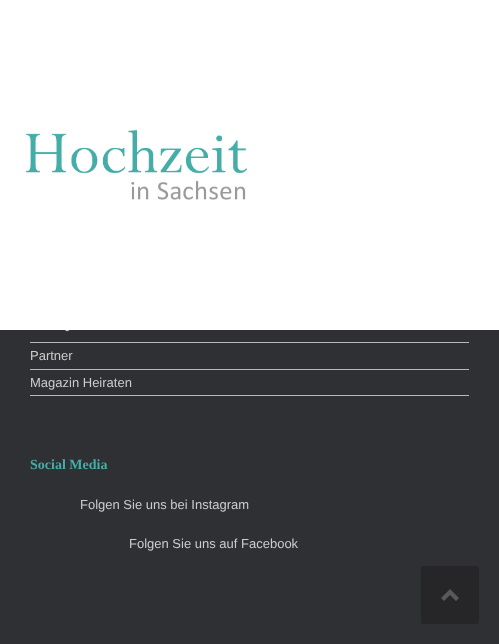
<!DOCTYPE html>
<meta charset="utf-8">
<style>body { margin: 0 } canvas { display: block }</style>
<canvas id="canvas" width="499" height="644"></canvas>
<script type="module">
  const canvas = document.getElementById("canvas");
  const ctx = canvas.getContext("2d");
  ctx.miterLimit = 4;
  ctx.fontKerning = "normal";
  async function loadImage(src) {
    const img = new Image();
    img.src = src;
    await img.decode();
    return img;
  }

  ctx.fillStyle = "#2f3033";
  ctx.fillRect(0, 0, 499, 644);
  ctx.fillStyle = "#ffffff";
  ctx.fillRect(0, 0, 499, 330);
  ctx.drawImage(await loadImage("img1.png"), 26, 129, 221, 71);
  ctx.fillStyle = "#b9b9b9";
  ctx.fillRect(30, 342, 439, 1);
  ctx.font = "13px Liberation Sans";
  ctx.fillStyle = "#cccccc";
  ctx.fillText("-", 65, 334);
  ctx.fillStyle = "#b9b9b9";
  ctx.fillRect(30, 369, 439, 1);
  ctx.fillStyle = "#cccccc";
  ctx.fillText("Partner", 30, 360);
  ctx.fillStyle = "#b9b9b9";
  ctx.fillRect(30, 395, 439, 1);
  ctx.fillStyle = "#cccccc";
  ctx.fillText("Magazin Heiraten", 30, 387);
  ctx.font = "bold 14px Liberation Serif";
  ctx.fillStyle = "#44ada7";
  ctx.fillText("Social Media", 30, 469);
  ctx.font = "13px Liberation Sans";
  ctx.fillStyle = "#cccccc";
  ctx.fillText("Folgen Sie uns bei Instagram", 80, 509);
  ctx.fillText("Folgen Sie uns auf Facebook", 129, 548);
  ctx.fillStyle = "#262629";
  ctx.beginPath();
  ctx.roundRect(421, 566, 58, 58, 3);
  ctx.fill();
  ctx.fillStyle = "#59595c";
  ctx.beginPath();
  ctx.moveTo(459, 598);
  ctx.lineTo(450, 589);
  ctx.lineTo(441, 598);
  ctx.lineTo(444, 601);
  ctx.lineTo(450, 595);
  ctx.lineTo(456, 601);
  ctx.closePath();
  ctx.fill();
</script>
